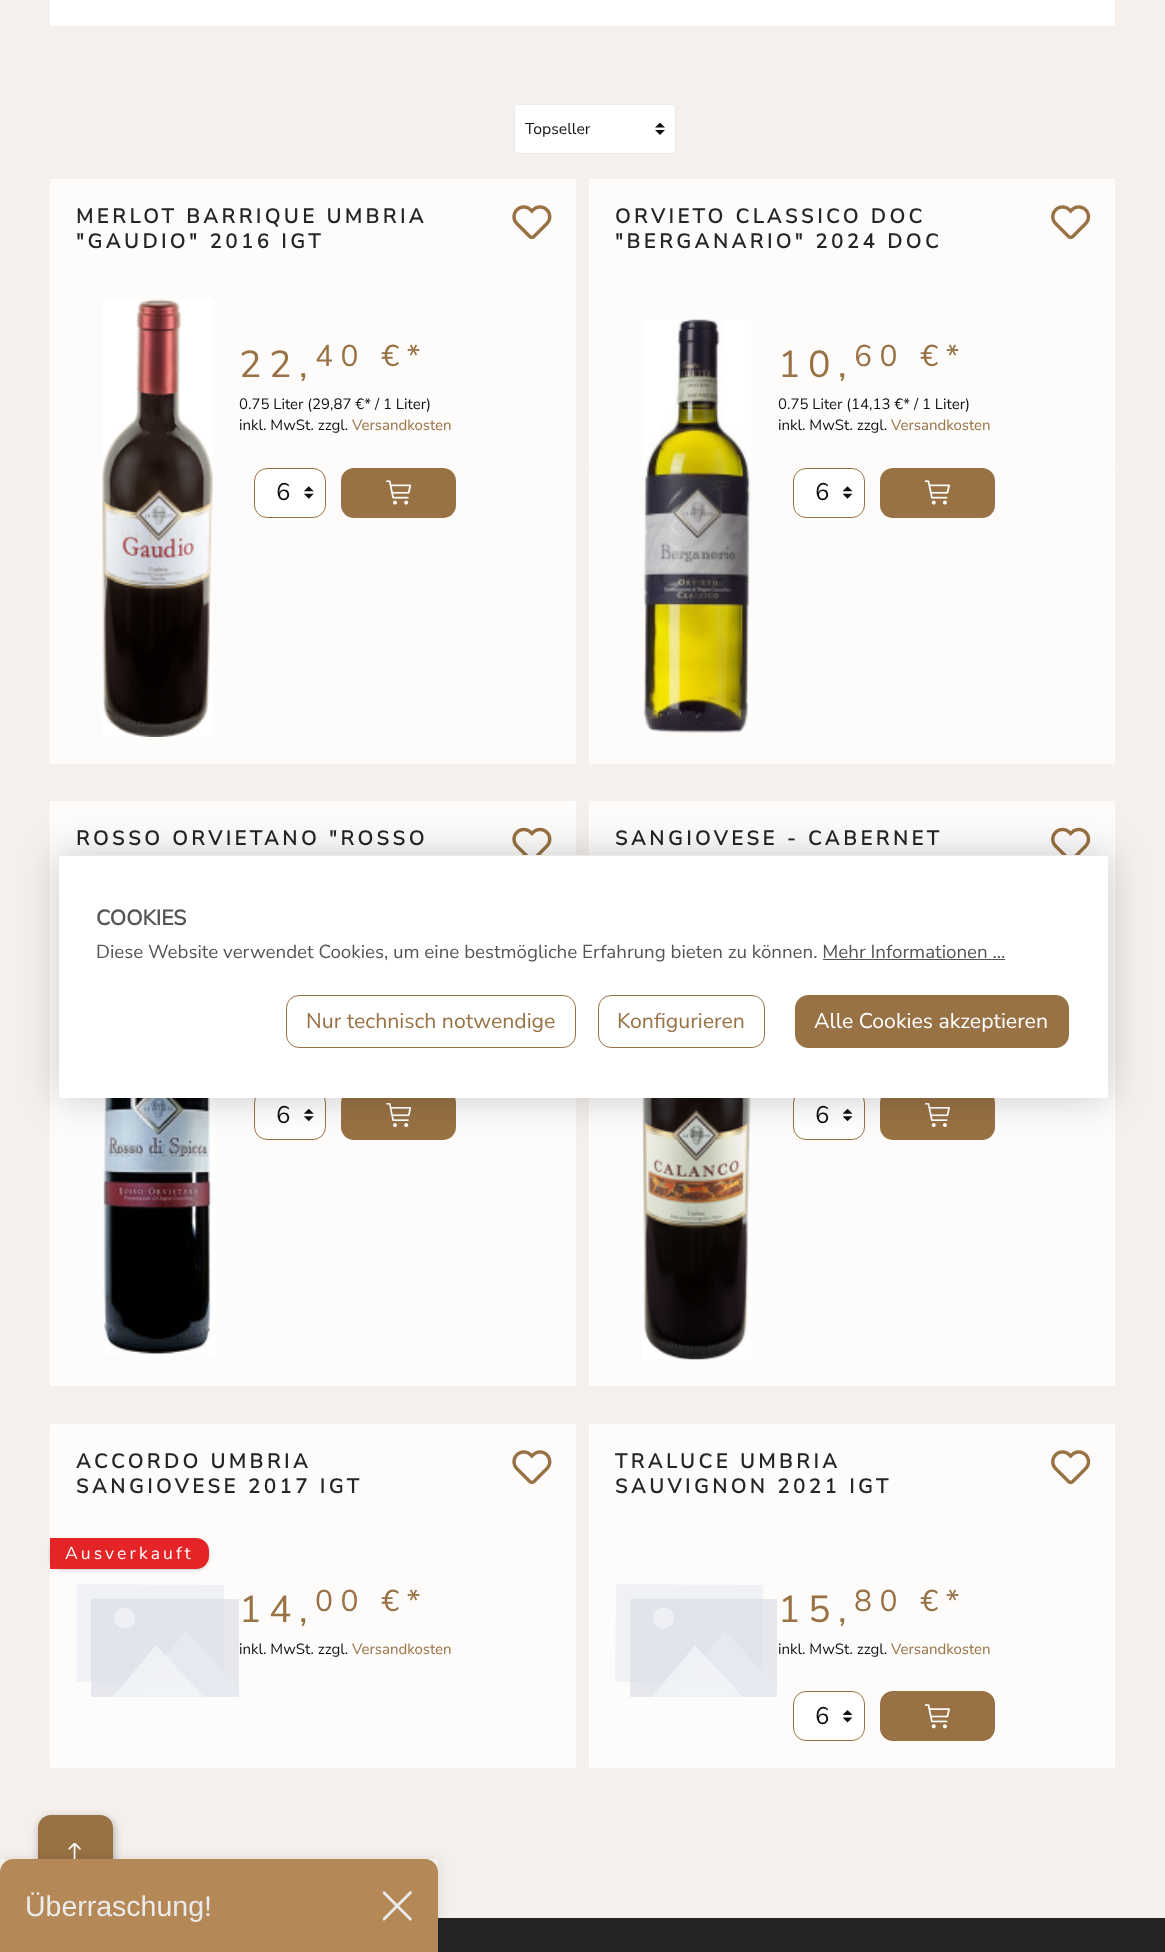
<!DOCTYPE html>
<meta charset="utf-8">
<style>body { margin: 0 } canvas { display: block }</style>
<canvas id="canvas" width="1165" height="1952"></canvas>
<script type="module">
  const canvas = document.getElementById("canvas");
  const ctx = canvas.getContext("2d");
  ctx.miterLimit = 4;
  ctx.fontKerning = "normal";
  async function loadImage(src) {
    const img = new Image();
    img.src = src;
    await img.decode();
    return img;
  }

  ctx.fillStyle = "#f5f0ec";
  ctx.fillRect(0, 0, 1165, 1952);
  ctx.fillStyle = "#ffffff";
  ctx.fillRect(50, 0, 1065, 26);
  ctx.beginPath();
  ctx.roundRect(514, 104, 162, 50, 4);
  ctx.fill();
  ctx.drawImage(await loadImage("img1.png"), 655, 123, 10, 12);
  ctx.beginPath();
  ctx.roundRect(514.5, 104.5, 161, 49, 3.5);
  ctx.strokeStyle = "#eaeaea";
  ctx.stroke();
  ctx.font = "15.75px Nunito Sans";
  ctx.fillStyle = "#111111";
  ctx.fillText("Topseller", 525, 134);
  ctx.fillStyle = "#fdfcfb";
  ctx.beginPath();
  ctx.rect(50.5, 179.5, 525, 584);
  ctx.fill();
  ctx.strokeStyle = "#fffefe";
  ctx.stroke();
  ctx.letterSpacing = "3.75px";
  ctx.font = "bold 20px Nunito Sans";
  ctx.fillStyle = "#252525";
  ctx.fillText("MERLOT BARRIQUE UMBRIA", 76, 223);
  ctx.fillText("\"GAUDIO\" 2016 IGT", 76, 248);
  ctx.drawImage(await loadImage("img2.png"), 512, 205, 40, 35);
  ctx.drawImage(await loadImage("img3.png"), 102, 299, 111, 438);
  ctx.letterSpacing = "7.5px";
  ctx.font = "37.5px Nunito Sans";
  ctx.fillStyle = "#987144";
  ctx.fillText("22,", 239, 377);
  ctx.font = "30px Nunito Sans";
  ctx.fillText("40 €*", 315, 366);
  ctx.letterSpacing = "0px";
  ctx.font = "15px Nunito Sans";
  ctx.fillStyle = "#111111";
  ctx.fillText("0.75 Liter (29,87 €* / 1 Liter)", 239, 409);
  ctx.fillText("inkl. MwSt. zzgl.", 239, 430);
  ctx.fillStyle = "#987144";
  ctx.fillText("Versandkosten", 352, 430);
  ctx.fillStyle = "#ffffff";
  ctx.beginPath();
  ctx.roundRect(254, 468, 72, 50, 13);
  ctx.fill();
  ctx.drawImage(await loadImage("img4.png"), 304, 486, 10, 13);
  ctx.beginPath();
  ctx.roundRect(254.5, 468.5, 71, 49, 12.5);
  ctx.strokeStyle = "#987144";
  ctx.stroke();
  ctx.font = "24px Nunito Sans";
  ctx.fillStyle = "#111111";
  ctx.fillText("6", 276, 500);
  ctx.fillStyle = "#987144";
  ctx.beginPath();
  ctx.roundRect(341, 468, 115, 50, 13);
  ctx.fill();
  ctx.drawImage(await loadImage("img5.png"), 386, 480, 25, 25);
  ctx.fillStyle = "#fdfcfb";
  ctx.beginPath();
  ctx.rect(589.5, 179.5, 525, 584);
  ctx.fill();
  ctx.strokeStyle = "#fffefe";
  ctx.stroke();
  ctx.letterSpacing = "3.75px";
  ctx.font = "bold 20px Nunito Sans";
  ctx.fillStyle = "#252525";
  ctx.fillText("ORVIETO CLASSICO DOC", 615, 223);
  ctx.fillText("\"BERGANARIO\" 2024 DOC", 615, 248);
  ctx.drawImage(await loadImage("img6.png"), 1051, 205, 40, 35);
  ctx.drawImage(await loadImage("img7.png"), 643, 319, 108, 414);
  ctx.letterSpacing = "7.5px";
  ctx.font = "37.5px Nunito Sans";
  ctx.fillStyle = "#987144";
  ctx.fillText("10,", 778, 377);
  ctx.font = "30px Nunito Sans";
  ctx.fillText("60 €*", 854, 366);
  ctx.letterSpacing = "0px";
  ctx.font = "15px Nunito Sans";
  ctx.fillStyle = "#111111";
  ctx.fillText("0.75 Liter (14,13 €* / 1 Liter)", 778, 409);
  ctx.fillText("inkl. MwSt. zzgl.", 778, 430);
  ctx.fillStyle = "#987144";
  ctx.fillText("Versandkosten", 891, 430);
  ctx.fillStyle = "#ffffff";
  ctx.beginPath();
  ctx.roundRect(793, 468, 72, 50, 13);
  ctx.fill();
  ctx.drawImage(await loadImage("img8.png"), 843, 486, 10, 13);
  ctx.beginPath();
  ctx.roundRect(793.5, 468.5, 71, 49, 12.5);
  ctx.strokeStyle = "#987144";
  ctx.stroke();
  ctx.font = "24px Nunito Sans";
  ctx.fillStyle = "#111111";
  ctx.fillText("6", 815, 500);
  ctx.fillStyle = "#987144";
  ctx.beginPath();
  ctx.roundRect(880, 468, 115, 50, 13);
  ctx.fill();
  ctx.drawImage(await loadImage("img9.png"), 925, 480, 25, 25);
  ctx.fillStyle = "#fdfcfb";
  ctx.beginPath();
  ctx.rect(50.5, 801.5, 525, 584);
  ctx.fill();
  ctx.strokeStyle = "#fffefe";
  ctx.stroke();
  ctx.letterSpacing = "3.75px";
  ctx.font = "bold 20px Nunito Sans";
  ctx.fillStyle = "#252525";
  ctx.fillText("ROSSO ORVIETANO \"ROSSO", 76, 845);
  ctx.drawImage(await loadImage("img10.png"), 512, 827, 40, 28);
  ctx.drawImage(await loadImage("img11.png"), 103, 1098, 114, 257);
  ctx.fillStyle = "#ffffff";
  ctx.beginPath();
  ctx.roundRect(254, 1090, 72, 50, 13);
  ctx.fill();
  ctx.drawImage(await loadImage("img12.png"), 304, 1109, 10, 12);
  ctx.beginPath();
  ctx.roundRect(254.5, 1090.5, 71, 49, 12.5);
  ctx.strokeStyle = "#987144";
  ctx.stroke();
  ctx.letterSpacing = "0px";
  ctx.font = "24px Nunito Sans";
  ctx.fillStyle = "#111111";
  ctx.fillText("6", 276, 1123);
  ctx.fillStyle = "#987144";
  ctx.beginPath();
  ctx.roundRect(341, 1090, 115, 50, 13);
  ctx.fill();
  ctx.drawImage(await loadImage("img13.png"), 386, 1103, 25, 25);
  ctx.fillStyle = "#fdfcfb";
  ctx.beginPath();
  ctx.rect(589.5, 801.5, 525, 584);
  ctx.fill();
  ctx.strokeStyle = "#fffefe";
  ctx.stroke();
  ctx.letterSpacing = "3.75px";
  ctx.font = "bold 20px Nunito Sans";
  ctx.fillStyle = "#252525";
  ctx.fillText("SANGIOVESE - CABERNET", 615, 845);
  ctx.drawImage(await loadImage("img14.png"), 1051, 827, 40, 28);
  ctx.drawImage(await loadImage("img15.png"), 642, 1098, 109, 262);
  ctx.fillStyle = "#ffffff";
  ctx.beginPath();
  ctx.roundRect(793, 1090, 72, 50, 13);
  ctx.fill();
  ctx.drawImage(await loadImage("img16.png"), 843, 1109, 10, 12);
  ctx.beginPath();
  ctx.roundRect(793.5, 1090.5, 71, 49, 12.5);
  ctx.strokeStyle = "#987144";
  ctx.stroke();
  ctx.letterSpacing = "0px";
  ctx.font = "24px Nunito Sans";
  ctx.fillStyle = "#111111";
  ctx.fillText("6", 815, 1123);
  ctx.fillStyle = "#987144";
  ctx.beginPath();
  ctx.roundRect(880, 1090, 115, 50, 13);
  ctx.fill();
  ctx.drawImage(await loadImage("img17.png"), 925, 1103, 25, 25);
  ctx.fillStyle = "#fdfcfb";
  ctx.beginPath();
  ctx.rect(50.5, 1424.5, 525, 343);
  ctx.fill();
  ctx.strokeStyle = "#fffefe";
  ctx.stroke();
  ctx.letterSpacing = "3.75px";
  ctx.font = "bold 20px Nunito Sans";
  ctx.fillStyle = "#252525";
  ctx.fillText("ACCORDO UMBRIA", 76, 1468);
  ctx.fillText("SANGIOVESE 2017 IGT", 76, 1493);
  ctx.drawImage(await loadImage("img2.png"), 512, 1450, 40, 35);
  ctx.fillStyle = "#f0f1f5";
  ctx.beginPath();
  ctx.moveTo(77, 1682);
  ctx.lineTo(77, 1584);
  ctx.lineTo(224, 1585);
  ctx.lineTo(224, 1683);
  ctx.closePath();
  ctx.fill();
  ctx.fillStyle = "rgba(218, 221, 229, 0.65)";
  ctx.fillRect(91, 1599, 148, 98);
  ctx.fillStyle = "rgba(233, 235, 242, 0.65)";
  ctx.beginPath();
  ctx.moveTo(132, 1697);
  ctx.lineTo(239, 1697);
  ctx.lineTo(239, 1688);
  ctx.lineTo(186, 1631);
  ctx.closePath();
  ctx.fill("evenodd");
  ctx.fillStyle = "#eef0f6";
  ctx.beginPath();
  ctx.arc(124.5, 1618, 10.5, 0, Math.PI * 2);
  ctx.fill();
  ctx.fillStyle = "rgba(245, 247, 252, 0.65)";
  ctx.beginPath();
  ctx.moveTo(156, 1645);
  ctx.lineTo(113, 1697);
  ctx.lineTo(204, 1697);
  ctx.closePath();
  ctx.fill("evenodd");
  ctx.fillStyle = "rgba(0, 0, 0, 0.1)";
  ctx.filter = "blur(1px)";
  ctx.beginPath();
  ctx.roundRect(50, 1539, 159, 31, 13);
  ctx.fill();
  ctx.filter = "none";
  ctx.filter = "blur(2px)";
  ctx.beginPath();
  ctx.roundRect(50, 1539, 159, 31, 13);
  ctx.fill();
  ctx.filter = "none";
  ctx.fillStyle = "#e52427";
  ctx.beginPath();
  ctx.roundRect(50, 1538, 159, 31, [0, 13, 13, 0]);
  ctx.fill();
  ctx.letterSpacing = "3.1px";
  ctx.font = "17.5px Nunito Sans";
  ctx.fillStyle = "#ffffff";
  ctx.fillText("Ausverkauft", 65, 1559);
  ctx.letterSpacing = "7.5px";
  ctx.font = "37.5px Nunito Sans";
  ctx.fillStyle = "#987144";
  ctx.fillText("14,", 239, 1622);
  ctx.font = "30px Nunito Sans";
  ctx.fillText("00 €*", 315, 1611);
  ctx.letterSpacing = "0px";
  ctx.font = "15px Nunito Sans";
  ctx.fillStyle = "#111111";
  ctx.fillText("inkl. MwSt. zzgl.", 239, 1654);
  ctx.fillStyle = "#987144";
  ctx.fillText("Versandkosten", 352, 1654);
  ctx.fillStyle = "#fdfcfb";
  ctx.beginPath();
  ctx.rect(589.5, 1424.5, 525, 343);
  ctx.fill();
  ctx.stroke();
  ctx.letterSpacing = "3.75px";
  ctx.font = "bold 20px Nunito Sans";
  ctx.fillStyle = "#252525";
  ctx.fillText("TRALUCE UMBRIA", 615, 1468);
  ctx.fillText("SAUVIGNON 2021 IGT", 615, 1493);
  ctx.drawImage(await loadImage("img6.png"), 1051, 1450, 40, 35);
  ctx.fillStyle = "#f0f1f5";
  ctx.beginPath();
  ctx.moveTo(615, 1682);
  ctx.lineTo(616, 1584);
  ctx.lineTo(763, 1585);
  ctx.lineTo(762, 1683);
  ctx.closePath();
  ctx.fill();
  ctx.fillStyle = "rgba(218, 221, 229, 0.65)";
  ctx.fillRect(630, 1599, 147, 98);
  ctx.fillStyle = "rgba(233, 235, 242, 0.65)";
  ctx.beginPath();
  ctx.moveTo(670, 1697);
  ctx.lineTo(777, 1697);
  ctx.lineTo(777, 1688);
  ctx.lineTo(725, 1631);
  ctx.closePath();
  ctx.fill("evenodd");
  ctx.fillStyle = "#eef0f6";
  ctx.beginPath();
  ctx.arc(663.5, 1618, 10.5, 0, Math.PI * 2);
  ctx.fill();
  ctx.fillStyle = "rgba(245, 247, 252, 0.65)";
  ctx.beginPath();
  ctx.moveTo(695, 1645);
  ctx.lineTo(652, 1697);
  ctx.lineTo(743, 1697);
  ctx.closePath();
  ctx.fill("evenodd");
  ctx.letterSpacing = "7.5px";
  ctx.font = "37.5px Nunito Sans";
  ctx.fillStyle = "#987144";
  ctx.fillText("15,", 778, 1622);
  ctx.font = "30px Nunito Sans";
  ctx.fillText("80 €*", 854, 1611);
  ctx.letterSpacing = "0px";
  ctx.font = "15px Nunito Sans";
  ctx.fillStyle = "#111111";
  ctx.fillText("inkl. MwSt. zzgl.", 778, 1654);
  ctx.fillStyle = "#987144";
  ctx.fillText("Versandkosten", 891, 1654);
  ctx.fillStyle = "#ffffff";
  ctx.beginPath();
  ctx.roundRect(793, 1691, 72, 50, 13);
  ctx.fill();
  ctx.drawImage(await loadImage("img18.png"), 843, 1710, 10, 13);
  ctx.beginPath();
  ctx.roundRect(793.5, 1691.5, 71, 49, 12.5);
  ctx.strokeStyle = "#987144";
  ctx.stroke();
  ctx.font = "24px Nunito Sans";
  ctx.fillStyle = "#111111";
  ctx.fillText("6", 815, 1724);
  ctx.fillStyle = "#987144";
  ctx.beginPath();
  ctx.roundRect(880, 1691, 115, 50, 13);
  ctx.fill();
  ctx.drawImage(await loadImage("img19.png"), 925, 1704, 25, 25);
  ctx.fillStyle = "rgba(0, 0, 0, 0.2)";
  ctx.filter = "blur(19px)";
  ctx.beginPath();
  ctx.rect(59, 855, 1049, 243);
  ctx.fill();
  ctx.filter = "none";
  ctx.fillStyle = "#ffffff";
  ctx.fillRect(59, 856, 1049, 242);
  ctx.fillStyle = "#eaeaea";
  ctx.fillRect(59, 855, 1049, 1);
  ctx.font = "bold 21.25px Nunito Sans";
  ctx.fillStyle = "#555555";
  ctx.fillText("COOKIES", 96, 925);
  ctx.font = "18.75px Nunito Sans";
  ctx.fillText("Diese Website verwendet Cookies, um eine bestmögliche Erfahrung bieten zu können. Mehr Informationen ...", 96, 958);
  ctx.fillRect(823, 959, 182, 1);
  ctx.beginPath();
  ctx.roundRect(286.5, 995.5, 289, 52, 12.5);
  ctx.stroke();
  ctx.font = "21.25px Nunito Sans";
  ctx.fillStyle = "#987144";
  ctx.fillText("Nur technisch notwendige", 306, 1028);
  ctx.beginPath();
  ctx.roundRect(598.5, 995.5, 166, 52, 12.5);
  ctx.stroke();
  ctx.fillText("Konfigurieren", 617, 1028);
  ctx.beginPath();
  ctx.roundRect(795.5, 995.5, 273, 52, 12.5);
  ctx.fill();
  ctx.stroke();
  ctx.fillStyle = "#ffffff";
  ctx.fillText("Alle Cookies akzeptieren", 814, 1028);
  ctx.fillStyle = "rgba(0, 0, 0, 0.3)";
  ctx.filter = "blur(4px)";
  ctx.beginPath();
  ctx.roundRect(39, 1818, 75, 75, 13);
  ctx.fill();
  ctx.filter = "none";
  ctx.fillStyle = "#987144";
  ctx.beginPath();
  ctx.roundRect(38, 1815, 75, 75, 13);
  ctx.fill();
  ctx.drawImage(await loadImage("img20.png"), 68, 1843, 13, 16);
  ctx.fillStyle = "#252525";
  ctx.fillRect(438, 1918, 727, 34);
  ctx.save();
  ctx.beginPath();
  ctx.moveTo(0, 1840);
  ctx.lineTo(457, 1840);
  ctx.lineTo(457, 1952);
  ctx.lineTo(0, 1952);
  ctx.closePath();
  ctx.moveTo(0, 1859);
  ctx.lineTo(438, 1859);
  ctx.lineTo(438, 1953);
  ctx.lineTo(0, 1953);
  ctx.closePath();
  ctx.clip("evenodd");
  ctx.fillStyle = "rgba(0, 0, 0, 0.1)";
  ctx.filter = "blur(6px)";
  ctx.beginPath();
  ctx.rect(0, 1859, 438, 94);
  ctx.fill();
  ctx.filter = "none";
  ctx.restore();
  ctx.fillStyle = "#b58857";
  ctx.beginPath();
  ctx.moveTo(13, 1859);
  ctx.lineTo(425, 1859);
  ctx.bezierCurveTo(432, 1859, 438, 1865, 438, 1872);
  ctx.lineTo(438, 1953);
  ctx.lineTo(0, 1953);
  ctx.lineTo(0, 1872);
  ctx.bezierCurveTo(0, 1865, 6, 1859, 13, 1859);
  ctx.closePath();
  ctx.fill();
  ctx.font = "28.5px Liberation Sans";
  ctx.fillStyle = "#ebebeb";
  ctx.fillText("Überraschung!", 25, 1916);
  ctx.drawImage(await loadImage("img21.png"), 383, 1891, 29, 30);
</script>
